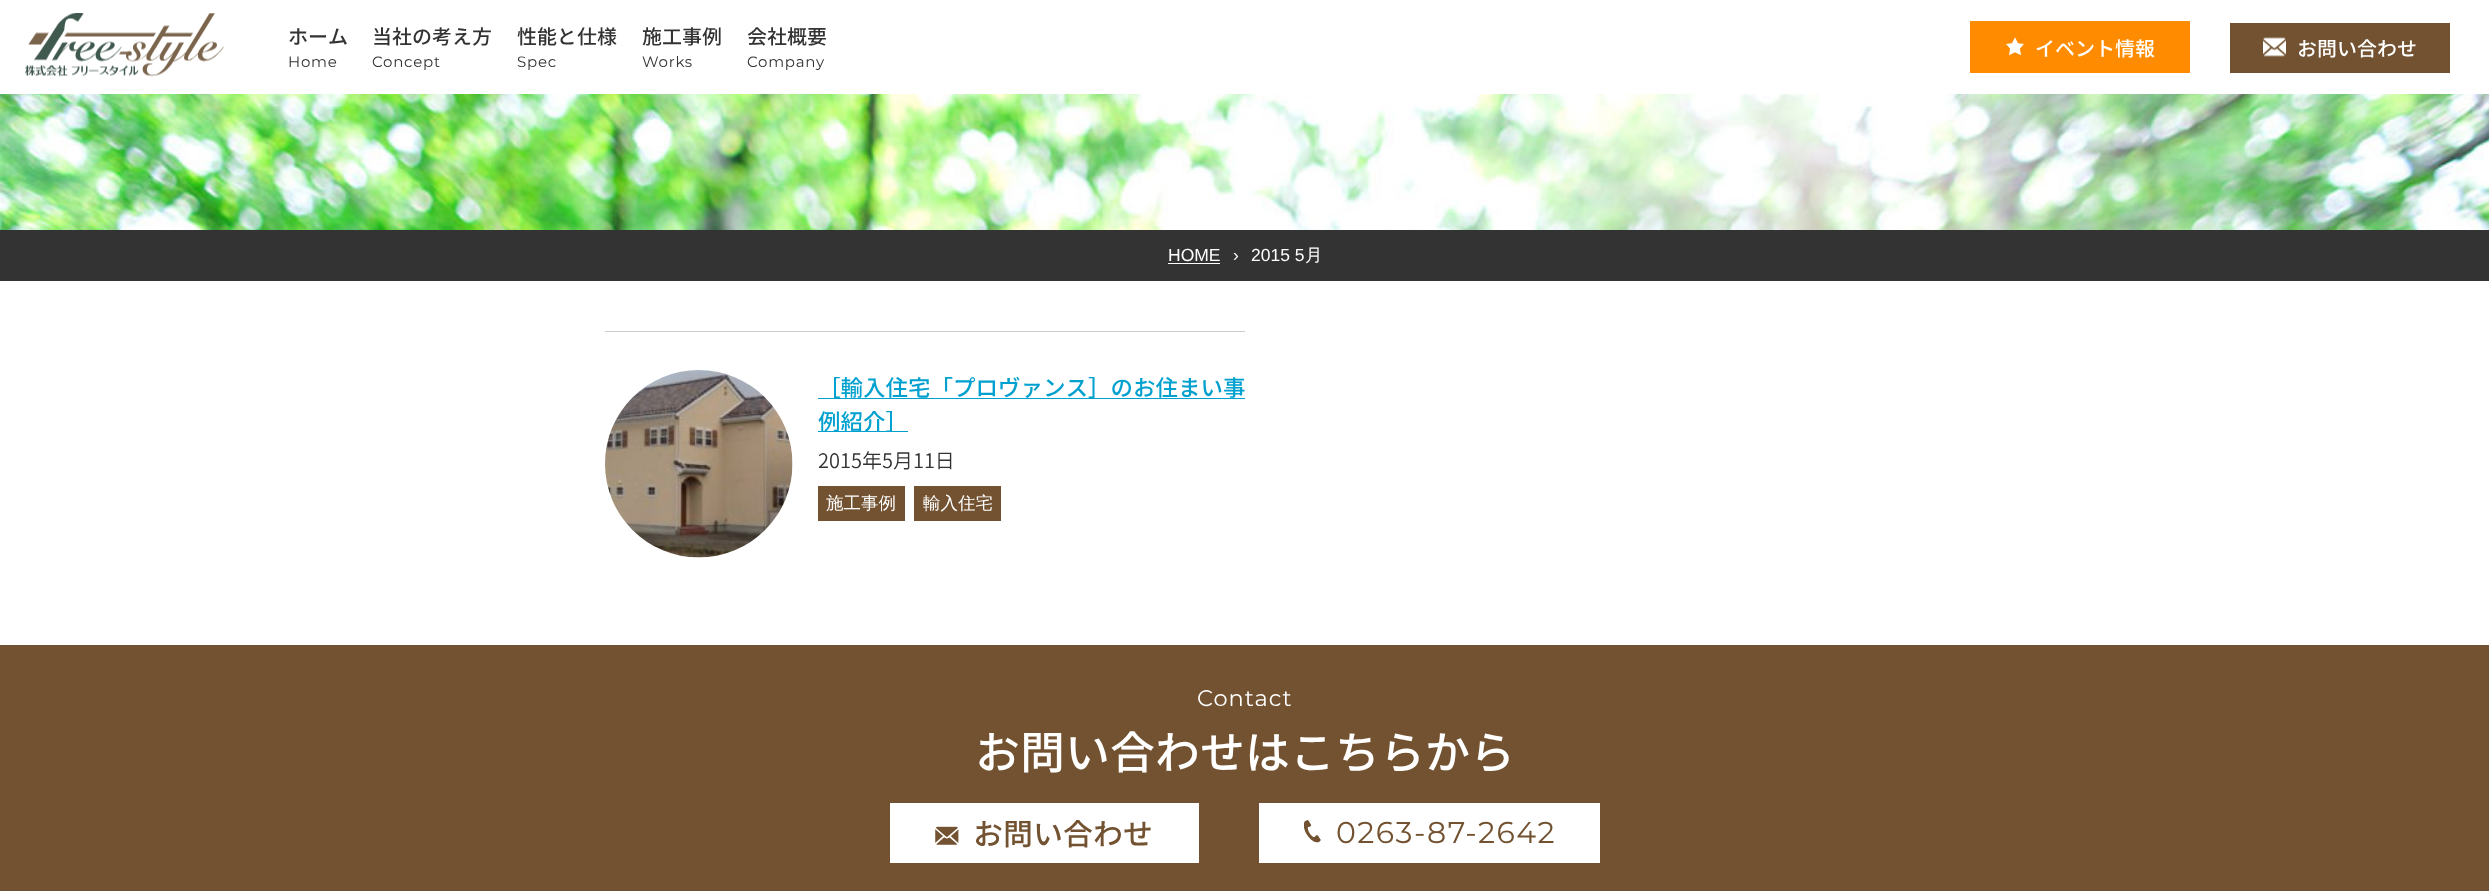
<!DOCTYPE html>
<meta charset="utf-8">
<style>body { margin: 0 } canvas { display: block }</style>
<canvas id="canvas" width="2489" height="891"></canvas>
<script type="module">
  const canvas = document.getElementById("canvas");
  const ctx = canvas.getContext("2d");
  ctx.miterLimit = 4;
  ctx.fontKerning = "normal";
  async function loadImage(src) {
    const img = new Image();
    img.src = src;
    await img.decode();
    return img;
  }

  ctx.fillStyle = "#ffffff";
  ctx.fillRect(0, 0, 2489, 891);
  ctx.drawImage(await loadImage("img1.png"), 25, 13, 199, 64);
  ctx.font = "500 20px Noto Sans JP";
  ctx.fillStyle = "#333333";
  ctx.fillText("ホーム", 288, 44);
  ctx.letterSpacing = "0.75px";
  ctx.font = "15px Montserrat";
  ctx.fillText("Home", 288, 67);
  ctx.letterSpacing = "0px";
  ctx.font = "500 20px Noto Sans JP";
  ctx.fillText("当社の考え方", 372, 44);
  ctx.letterSpacing = "0.75px";
  ctx.font = "15px Montserrat";
  ctx.fillText("Concept", 372, 67);
  ctx.letterSpacing = "0px";
  ctx.font = "500 20px Noto Sans JP";
  ctx.fillText("性能と仕様", 517, 44);
  ctx.letterSpacing = "0.75px";
  ctx.font = "15px Montserrat";
  ctx.fillText("Spec", 517, 67);
  ctx.letterSpacing = "0px";
  ctx.font = "500 20px Noto Sans JP";
  ctx.fillText("施工事例", 642, 44);
  ctx.letterSpacing = "0.75px";
  ctx.font = "15px Montserrat";
  ctx.fillText("Works", 642, 67);
  ctx.letterSpacing = "0px";
  ctx.font = "500 20px Noto Sans JP";
  ctx.fillText("会社概要", 747, 44);
  ctx.letterSpacing = "0.75px";
  ctx.font = "15px Montserrat";
  ctx.fillText("Company", 747, 67);
  ctx.fillStyle = "#ff8c00";
  ctx.fillRect(1970, 21, 220, 52);
  ctx.drawImage(await loadImage("img2.png"), 2006, 37, 18, 19);
  ctx.letterSpacing = "0px";
  ctx.font = "500 20px Noto Sans JP";
  ctx.fillStyle = "#ffffff";
  ctx.fillText("イベント情報", 2035, 56);
  ctx.fillStyle = "#725230";
  ctx.fillRect(2230, 23, 220, 50);
  ctx.drawImage(await loadImage("img3.png"), 2263, 37, 23, 20);
  ctx.fillStyle = "#ffffff";
  ctx.fillText("お問い合わせ", 2297, 56);
  ctx.drawImage(await loadImage("img4.png"), 0, 94, 2489, 136);
  ctx.fillStyle = "#333333";
  ctx.fillRect(0, 230, 2489, 51);
  ctx.font = "17.5px Liberation Sans";
  ctx.fillStyle = "#ffffff";
  ctx.fillText("HOME", 1168, 261);
  ctx.fillRect(1168, 263, 52, 1);
  ctx.fillText("›", 1233, 261);
  ctx.fillText("2015 5", 1251, 261);
  ctx.font = "500 17.5px WenQuanYi Zen Hei";
  ctx.fillText("月", 1305, 261);
  ctx.fillStyle = "#cccccc";
  ctx.fillRect(605, 331, 640, 1);
  ctx.drawImage(await loadImage("img5.png"), 605, 370, 188, 188);
  ctx.font = "500 22.5px Noto Sans JP";
  ctx.fillStyle = "#00a0cf";
  ctx.fillText("［輸入住宅「プロヴァンス］のお住まい事", 818, 396);
  ctx.fillRect(818, 398, 427, 1);
  ctx.fillRect(818, 431, 90, 1);
  ctx.fillText("例紹介］", 818, 430);
  ctx.font = "300 20px Noto Sans JP";
  ctx.fillStyle = "#333333";
  ctx.fillText("2015年5月11日", 818, 468);
  ctx.fillStyle = "#725230";
  ctx.fillRect(818, 486, 87, 35);
  ctx.font = "500 17.5px WenQuanYi Zen Hei";
  ctx.fillStyle = "#ffffff";
  ctx.fillText("施工事例", 826, 509);
  ctx.fillStyle = "#725230";
  ctx.fillRect(914, 486, 87, 35);
  ctx.fillStyle = "#ffffff";
  ctx.fillText("輸入住宅", 923, 509);
  ctx.fillStyle = "#725230";
  ctx.fillRect(0, 645, 2489, 246);
  ctx.letterSpacing = "1px";
  ctx.font = "22.5px Montserrat";
  ctx.fillStyle = "#ffffff";
  ctx.fillText("Contact", 1197, 706);
  ctx.letterSpacing = "0px";
  ctx.font = "500 45px Noto Sans JP";
  ctx.fillText("お問い合わせはこちらから", 975, 769);
  ctx.fillRect(890, 803, 309, 60);
  ctx.drawImage(await loadImage("img6.png"), 935, 826, 24, 19);
  ctx.font = "500 30px Noto Sans JP";
  ctx.fillStyle = "#725230";
  ctx.fillText("お問い合わせ", 973, 845);
  ctx.fillStyle = "#ffffff";
  ctx.fillRect(1259, 803, 341, 60);
  ctx.drawImage(await loadImage("img7.png"), 1304, 820, 17, 23);
  ctx.letterSpacing = "1.5px";
  ctx.font = "30px Montserrat";
  ctx.fillStyle = "#725230";
  ctx.fillText("0263-87-2642", 1336, 843);
</script>
